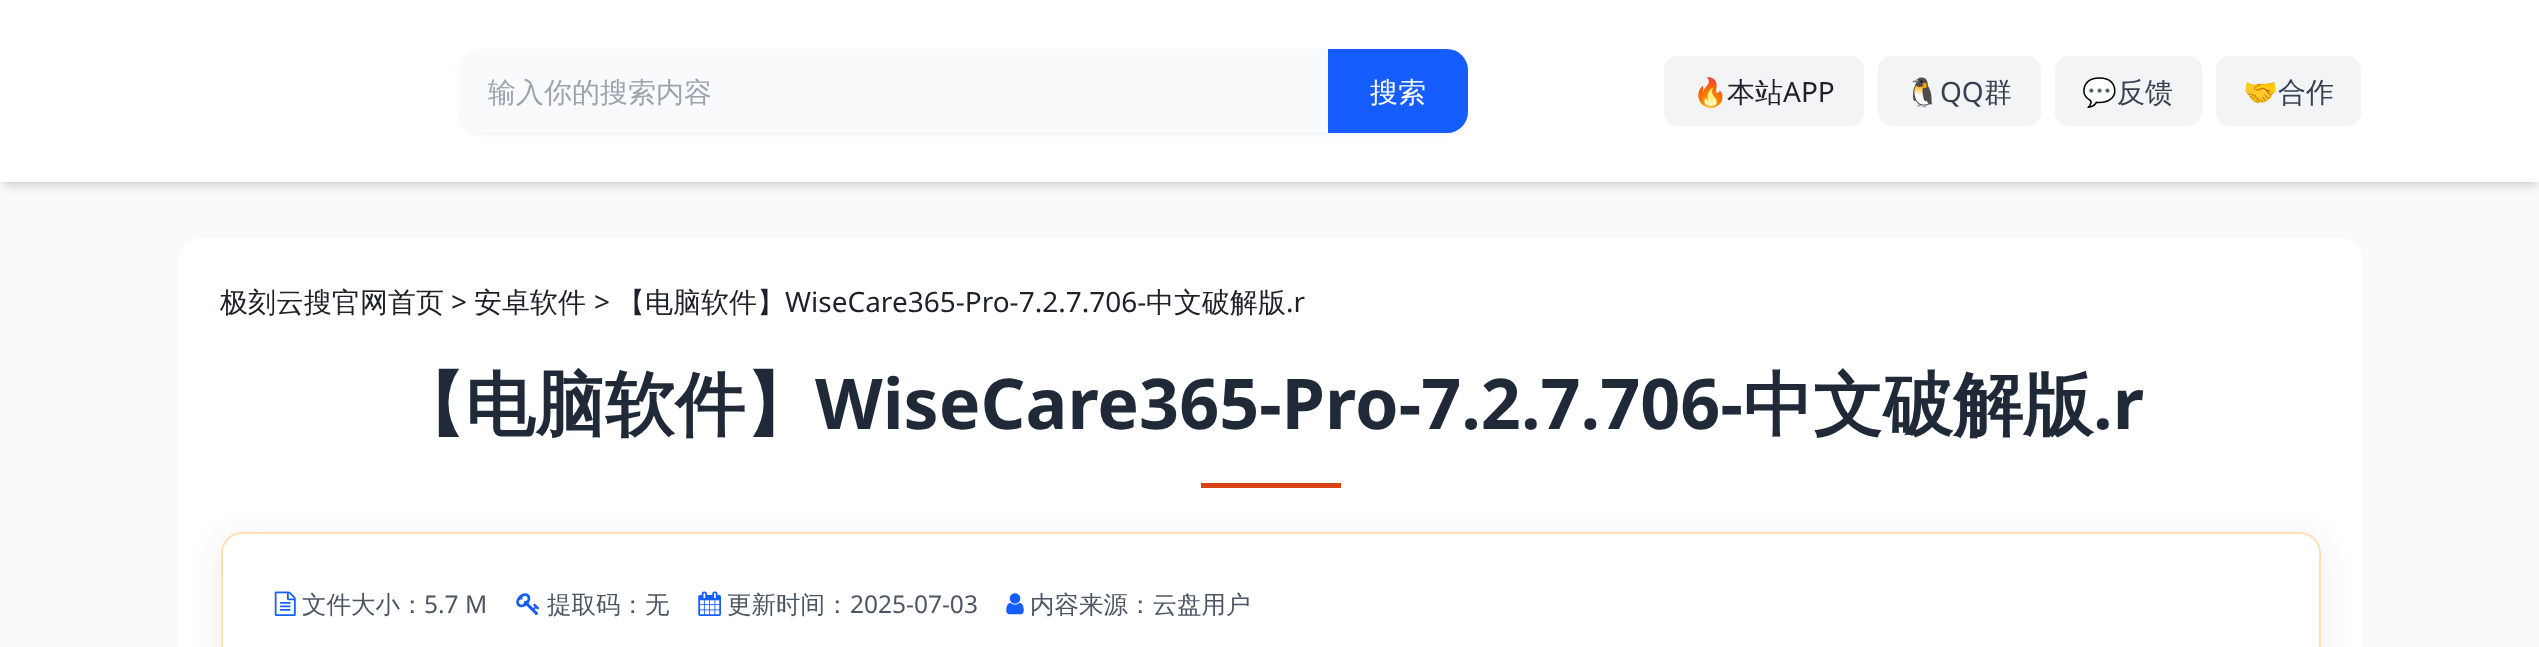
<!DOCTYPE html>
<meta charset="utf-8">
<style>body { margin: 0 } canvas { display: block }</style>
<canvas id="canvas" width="2539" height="647"></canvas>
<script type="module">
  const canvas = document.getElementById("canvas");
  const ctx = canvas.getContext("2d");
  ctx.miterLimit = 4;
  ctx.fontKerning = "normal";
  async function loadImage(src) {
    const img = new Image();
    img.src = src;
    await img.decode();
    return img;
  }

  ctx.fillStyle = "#f9fafb";
  ctx.fillRect(0, 0, 2539, 647);
  ctx.fillStyle = "rgba(0, 0, 0, 0.1)";
  ctx.filter = "blur(3.5px)";
  ctx.beginPath();
  ctx.rect(4, 7, 2532, 175);
  ctx.fill();
  ctx.filter = "none";
  ctx.filter = "blur(5px)";
  ctx.beginPath();
  ctx.rect(2, 9, 2536, 178);
  ctx.fill();
  ctx.filter = "none";
  ctx.fillStyle = "#ffffff";
  ctx.fillRect(0, 0, 2539, 182);
  ctx.fillStyle = "rgba(0, 0, 0, 0.05)";
  ctx.filter = "blur(2px)";
  ctx.beginPath();
  ctx.roundRect(460, 51, 1008, 84, 21);
  ctx.fill();
  ctx.filter = "none";
  ctx.fillStyle = "#f9fafb";
  ctx.beginPath();
  ctx.roundRect(460, 49, 868, 84, [21, 0, 0, 21]);
  ctx.fill();
  ctx.font = "500 28px WenQuanYi Zen Hei";
  ctx.fillStyle = "#9ca3af";
  ctx.fillText("输入你的搜索内容", 488, 102);
  ctx.fillStyle = "#165dff";
  ctx.beginPath();
  ctx.roundRect(1328, 49, 140, 84, [0, 21, 21, 0]);
  ctx.fill();
  ctx.fillStyle = "#ffffff";
  ctx.fillText("搜索", 1370, 102);
  ctx.fillStyle = "#f3f4f6";
  ctx.beginPath();
  ctx.roundRect(1664, 56, 200, 70, 14);
  ctx.fill();
  ctx.font = "28px Noto Color Emoji";
  ctx.fillStyle = "#1d2129";
  ctx.fillText("🔥", 1693, 102);
  ctx.font = "500 28px WenQuanYi Zen Hei";
  ctx.fillText("本站", 1727, 102);
  ctx.font = "28px Noto Sans";
  ctx.fillText("APP", 1783, 102);
  ctx.fillStyle = "#f3f4f6";
  ctx.beginPath();
  ctx.roundRect(1878, 56, 163, 70, 14);
  ctx.fill();
  ctx.font = "28px Noto Color Emoji";
  ctx.fillStyle = "#374151";
  ctx.fillText("🐧", 1905, 102);
  ctx.font = "28px Noto Sans";
  ctx.fillText("QQ", 1940, 102);
  ctx.font = "500 28px WenQuanYi Zen Hei";
  ctx.fillText("群", 1984, 102);
  ctx.fillStyle = "#f3f4f6";
  ctx.beginPath();
  ctx.roundRect(2055, 56, 147, 70, 14);
  ctx.fill();
  ctx.font = "28px Noto Color Emoji";
  ctx.fillStyle = "#374151";
  ctx.fillText("💬", 2082, 102);
  ctx.font = "500 28px WenQuanYi Zen Hei";
  ctx.fillText("反馈", 2117, 102);
  ctx.fillStyle = "#f3f4f6";
  ctx.beginPath();
  ctx.roundRect(2216, 56, 145, 70, 14);
  ctx.fill();
  ctx.font = "28px Noto Color Emoji";
  ctx.fillStyle = "#374151";
  ctx.fillText("🤝", 2243, 102);
  ctx.font = "500 28px WenQuanYi Zen Hei";
  ctx.fillText("合作", 2278, 102);
  ctx.fillStyle = "#ffffff";
  ctx.beginPath();
  ctx.roundRect(179, 238, 2184, 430, 21);
  ctx.fill();
  ctx.fillStyle = "#1d2129";
  ctx.fillText("极刻云搜官网首页", 220, 312);
  ctx.font = "28px Noto Sans";
  ctx.fillText(">", 451, 312);
  ctx.font = "500 28px WenQuanYi Zen Hei";
  ctx.fillText("安卓软件", 474, 312);
  ctx.font = "28px Noto Sans";
  ctx.fillText(">", 594, 312);
  ctx.font = "500 28px WenQuanYi Zen Hei";
  ctx.fillText("【电脑软件】", 617, 312);
  ctx.font = "28px Noto Sans";
  ctx.fillText("WiseCare365-Pro-7.2.7.706-", 785, 312);
  ctx.font = "500 28px WenQuanYi Zen Hei";
  ctx.fillText("中文破解版", 1146, 312);
  ctx.font = "28px Noto Sans";
  ctx.fillText(".r", 1286, 312);
  ctx.font = "bold 70px WenQuanYi Zen Hei";
  ctx.fillStyle = "#1f2937";
  ctx.fillText("【电脑软件】", 395, 429);
  ctx.font = "bold 70px Noto Sans";
  ctx.fillText("WiseCare365-Pro-7.2.7.706-", 815, 429);
  ctx.font = "bold 70px WenQuanYi Zen Hei";
  ctx.fillText("中文破解版", 1743, 429);
  ctx.font = "bold 70px Noto Sans";
  ctx.fillText(".r", 2093, 429);
  ctx.fillStyle = "rgba(0, 0, 0, 0.08)";
  ctx.filter = "blur(17.5px)";
  ctx.beginPath();
  ctx.roundRect(221, 539, 2100, 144, 21);
  ctx.fill();
  ctx.filter = "none";
  ctx.fillStyle = "#d84315";
  ctx.fillRect(1201, 483, 140, 5);
  ctx.fillStyle = "#ffffff";
  ctx.beginPath();
  ctx.roundRect(222, 533, 2098, 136, 20);
  ctx.fill();
  ctx.strokeStyle = "#ffe0b2";
  ctx.lineWidth = 2;
  ctx.stroke();
  ctx.drawImage(await loadImage("img1.png"), 274, 591, 22, 25);
  ctx.font = "500 24.5px WenQuanYi Zen Hei";
  ctx.fillStyle = "#4b5563";
  ctx.fillText("文件大小：", 302, 613);
  ctx.font = "24.5px Noto Sans";
  ctx.fillText("5.7 M", 424, 613);
  ctx.drawImage(await loadImage("img2.png"), 516, 593, 24, 22);
  ctx.font = "500 24.5px WenQuanYi Zen Hei";
  ctx.fillText("提取码：无", 547, 613);
  ctx.drawImage(await loadImage("img3.png"), 698, 591, 23, 25);
  ctx.fillText("更新时间：", 727, 613);
  ctx.font = "24.5px Noto Sans";
  ctx.fillText("2025-07-03", 850, 613);
  ctx.drawImage(await loadImage("img4.png"), 1006, 593, 18, 22);
  ctx.font = "500 24.5px WenQuanYi Zen Hei";
  ctx.fillText("内容来源：云盘用户", 1030, 613);
</script>
